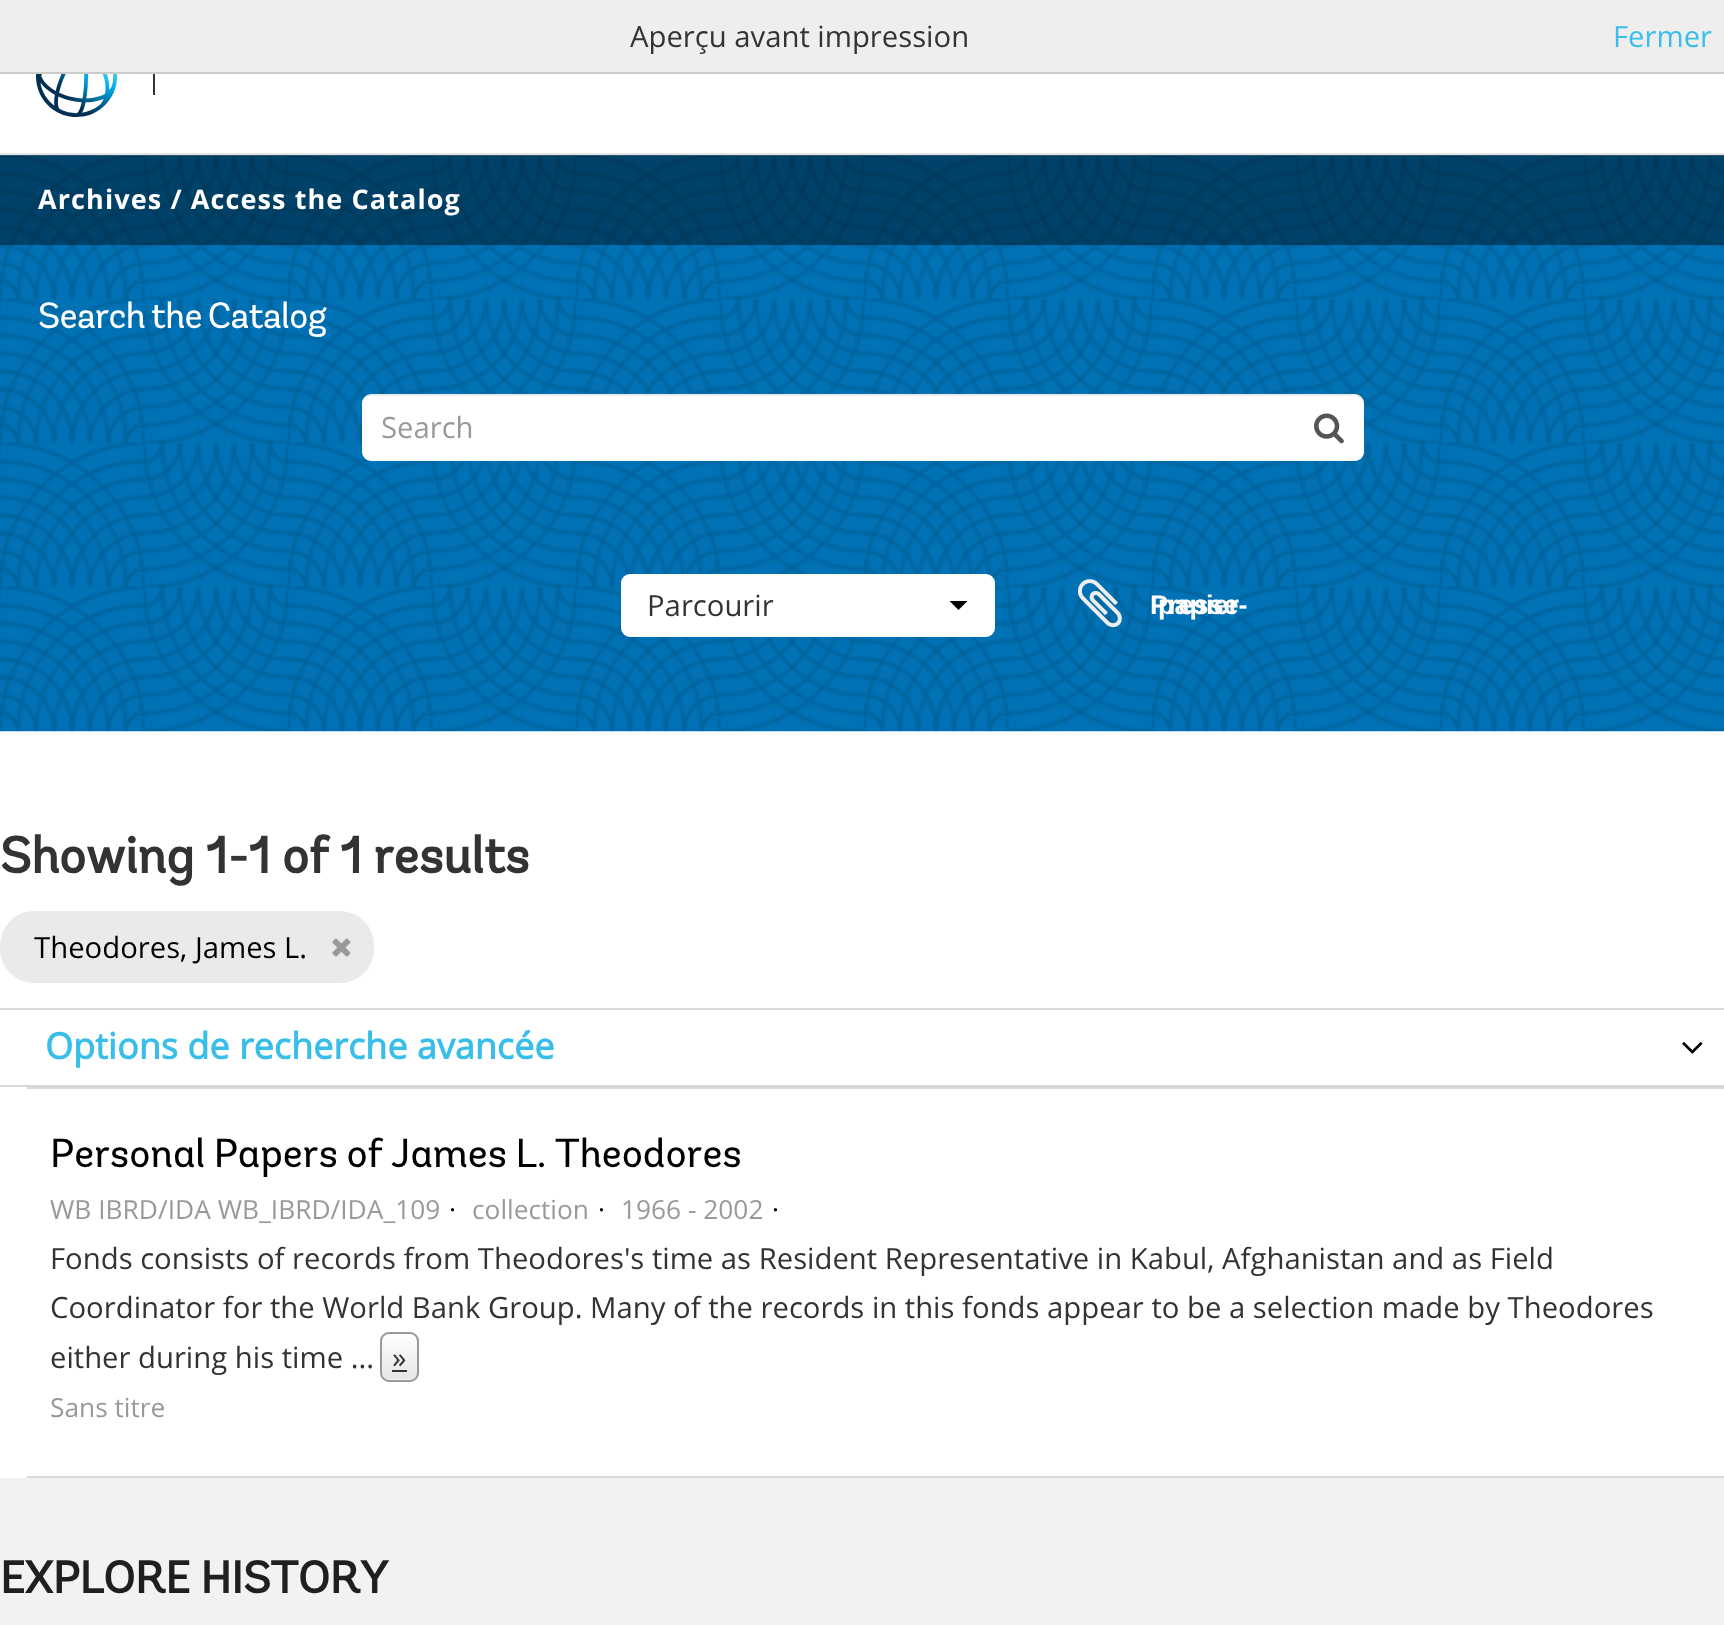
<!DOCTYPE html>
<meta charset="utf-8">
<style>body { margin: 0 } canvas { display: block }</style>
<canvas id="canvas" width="1724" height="1625"></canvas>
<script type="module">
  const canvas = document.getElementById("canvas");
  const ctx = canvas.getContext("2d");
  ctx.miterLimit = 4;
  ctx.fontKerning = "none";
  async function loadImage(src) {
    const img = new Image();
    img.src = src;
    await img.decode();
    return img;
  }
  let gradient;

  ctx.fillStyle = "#ffffff";
  ctx.fillRect(0, 0, 1724, 1625);
  ctx.fillStyle = "#eeeeee";
  ctx.fillRect(0, 0, 1724, 72);
  ctx.fillStyle = "#cccccc";
  ctx.fillRect(0, 72, 1724, 2);
  ctx.font = "29.25px Open Sans";
  ctx.fillStyle = "#333333";
  ctx.fillText("Aperçu avant impression", 630, 47);
  ctx.fillStyle = "#39beea";
  ctx.fillText("Fermer", 1613, 47);
  ctx.wordSpacing = "-0.5px";
  ctx.font = "bold 51.25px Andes";
  ctx.fillStyle = "#333333";
  ctx.fillText("Showing 1-1 of 1 results", 0, 873);
  ctx.fillStyle = "#eaeaea";
  ctx.beginPath();
  ctx.roundRect(0, 911, 374, 72, 34);
  ctx.fill();
  ctx.wordSpacing = "0px";
  ctx.font = "29.25px Open Sans";
  ctx.fillStyle = "#000000";
  ctx.fillText("Theodores, James L.", 34, 958);
  ctx.drawImage(await loadImage("img1.png"), 332, 938, 19, 19);
  ctx.fillStyle = "#d9d9d9";
  ctx.fillRect(0, 1008, 1724, 2);
  ctx.fillRect(0, 1085, 1724, 2);
  ctx.font = "bold 36px 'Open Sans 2'";
  ctx.fillStyle = "#39beea";
  ctx.fillText("Options de recherche avancée", 45, 1059);
  ctx.drawImage(await loadImage("img2.png"), 1682, 1042, 21, 12);
  ctx.fillStyle = "#d9d9d9";
  ctx.fillRect(27, 1087, 1697, 2);
  ctx.fillRect(27, 1476, 1697, 2);
  ctx.wordSpacing = "-1px";
  ctx.font = "40.5px Andes";
  ctx.fillStyle = "#000000";
  ctx.fillText("Personal Papers of James L. Theodores", 50, 1167);
  ctx.wordSpacing = "0px";
  ctx.font = "26.3px Open Sans";
  ctx.fillStyle = "#999999";
  ctx.fillText("WB IBRD/IDA WB_IBRD/IDA_109", 50, 1219);
  ctx.fillStyle = "#000000";
  ctx.fillText("·", 449, 1219);
  ctx.fillStyle = "#999999";
  ctx.fillText("collection", 472, 1219);
  ctx.fillStyle = "#000000";
  ctx.fillText("·", 598, 1219);
  ctx.fillStyle = "#999999";
  ctx.fillText("1966 - 2002", 621, 1219);
  ctx.fillStyle = "#000000";
  ctx.fillText("·", 772, 1219);
  ctx.font = "29.25px Open Sans";
  ctx.fillStyle = "#333333";
  ctx.fillText("Fonds consists of records from Theodores's time as Resident Representative in Kabul, Afghanistan and as Field", 50, 1269);
  ctx.fillText("Coordinator for the World Bank Group. Many of the records in this fonds appear to be a selection made by Theodores", 50, 1318);
  ctx.fillText("either during his time ...", 50, 1368);
  ctx.fillStyle = "#f5f5f5";
  ctx.beginPath();
  ctx.roundRect(380, 1332, 39, 50, 9);
  ctx.fill();
  ctx.save();
  ctx.beginPath();
  ctx.roundRect(380, 1332, 39, 50, 9);
  ctx.clip();
  gradient = ctx.createLinearGradient(399, 1334, 399, 1379);
  gradient.addColorStop(0, "#ffffff");
  gradient.addColorStop(1, "#e6e6e6");
  ctx.fillStyle = gradient;
  ctx.fillRect(380, 1334, 39, 45);
  ctx.restore();
  ctx.beginPath();
  ctx.roundRect(381, 1333, 37, 48, 8);
  ctx.strokeStyle = "#999999";
  ctx.lineWidth = 2;
  ctx.stroke();
  ctx.fillStyle = "#333333";
  ctx.fillText("»", 392, 1368);
  ctx.fillRect(392, 1370, 15, 2);
  ctx.font = "26.3px Open Sans";
  ctx.fillStyle = "#999999";
  ctx.fillText("Sans titre", 50, 1417);
  ctx.fillStyle = "#e6e6e6";
  ctx.fillRect(0, 153, 1724, 2);
  ctx.drawImage(await loadImage("img3.png"), 36, 74, 81, 43);
  ctx.fillStyle = "#333333";
  ctx.fillRect(153, 74, 2, 21);
  ctx.drawImage(await loadImage("img4.png"), 0, 155, 1724, 577);
  ctx.fillStyle = "rgba(0, 0, 0, 0.42)";
  ctx.fillRect(0, 155, 1724, 90);
  ctx.letterSpacing = "1.1px";
  ctx.font = "bold 27px Open Sans";
  ctx.fillStyle = "#ffffff";
  ctx.fillText("Archives / Access the Catalog", 38, 209);
  ctx.letterSpacing = "-0.7px";
  ctx.wordSpacing = "-2px";
  ctx.font = "36.5px Andes";
  ctx.fillText("Search the Catalog", 38, 328);
  ctx.beginPath();
  ctx.roundRect(362, 394, 1002, 67, 9);
  ctx.fill();
  ctx.fillStyle = "rgba(0, 0, 0, 0.07)";
  ctx.beginPath();
  ctx.moveTo(371, 396);
  ctx.lineTo(1354, 396);
  ctx.bezierCurveTo(1359, 396, 1364, 400, 1364, 405);
  ctx.bezierCurveTo(1364, 399, 1361, 394, 1355, 394);
  ctx.lineTo(371, 394);
  ctx.bezierCurveTo(365, 394, 362, 399, 362, 405);
  ctx.bezierCurveTo(362, 400, 366, 396, 371, 396);
  ctx.closePath();
  ctx.fill();
  ctx.letterSpacing = "0px";
  ctx.wordSpacing = "0px";
  ctx.font = "29.25px Open Sans";
  ctx.fillStyle = "#999999";
  ctx.fillText("Search", 381, 438);
  ctx.drawImage(await loadImage("img5.png"), 1314, 413, 30, 31);
  ctx.fillStyle = "#ffffff";
  ctx.beginPath();
  ctx.roundRect(621, 574, 374, 63, 9);
  ctx.fill();
  ctx.fillStyle = "rgba(255, 255, 255, 0.2)";
  ctx.beginPath();
  ctx.moveTo(630, 576);
  ctx.lineTo(986, 576);
  ctx.bezierCurveTo(990, 576, 994, 580, 994, 585);
  ctx.lineTo(994, 630);
  ctx.lineTo(994, 633);
  ctx.bezierCurveTo(994, 632, 995, 630, 995, 628);
  ctx.lineTo(995, 583);
  ctx.bezierCurveTo(995, 578, 991, 574, 986, 574);
  ctx.lineTo(630, 574);
  ctx.bezierCurveTo(625, 574, 621, 578, 621, 583);
  ctx.lineTo(621, 585);
  ctx.bezierCurveTo(621, 580, 625, 576, 630, 576);
  ctx.closePath();
  ctx.fill();
  ctx.fillStyle = "#333333";
  ctx.fillText("Parcourir", 647, 616);
  ctx.fillStyle = "#000000";
  ctx.beginPath();
  ctx.moveTo(949.5, 601);
  ctx.lineTo(967.5, 601);
  ctx.lineTo(958.5, 610);
  ctx.closePath();
  ctx.fill();
  ctx.drawImage(await loadImage("img6.png"), 1077, 579, 45, 49);
  ctx.font = "bold 27px Liberation Sans";
  ctx.fillStyle = "#ffffff";
  ctx.fillText("Presse-", 1150, 614);
  ctx.fillText("papier", 1158, 614);
  ctx.fillStyle = "#f2f2f2";
  ctx.fillRect(0, 1478, 1724, 147);
  ctx.font = "bold 45px Andes";
  ctx.fillStyle = "#1f1f1f";
  ctx.fillText("EXPLORE HISTORY", 0, 1593);
</script>
